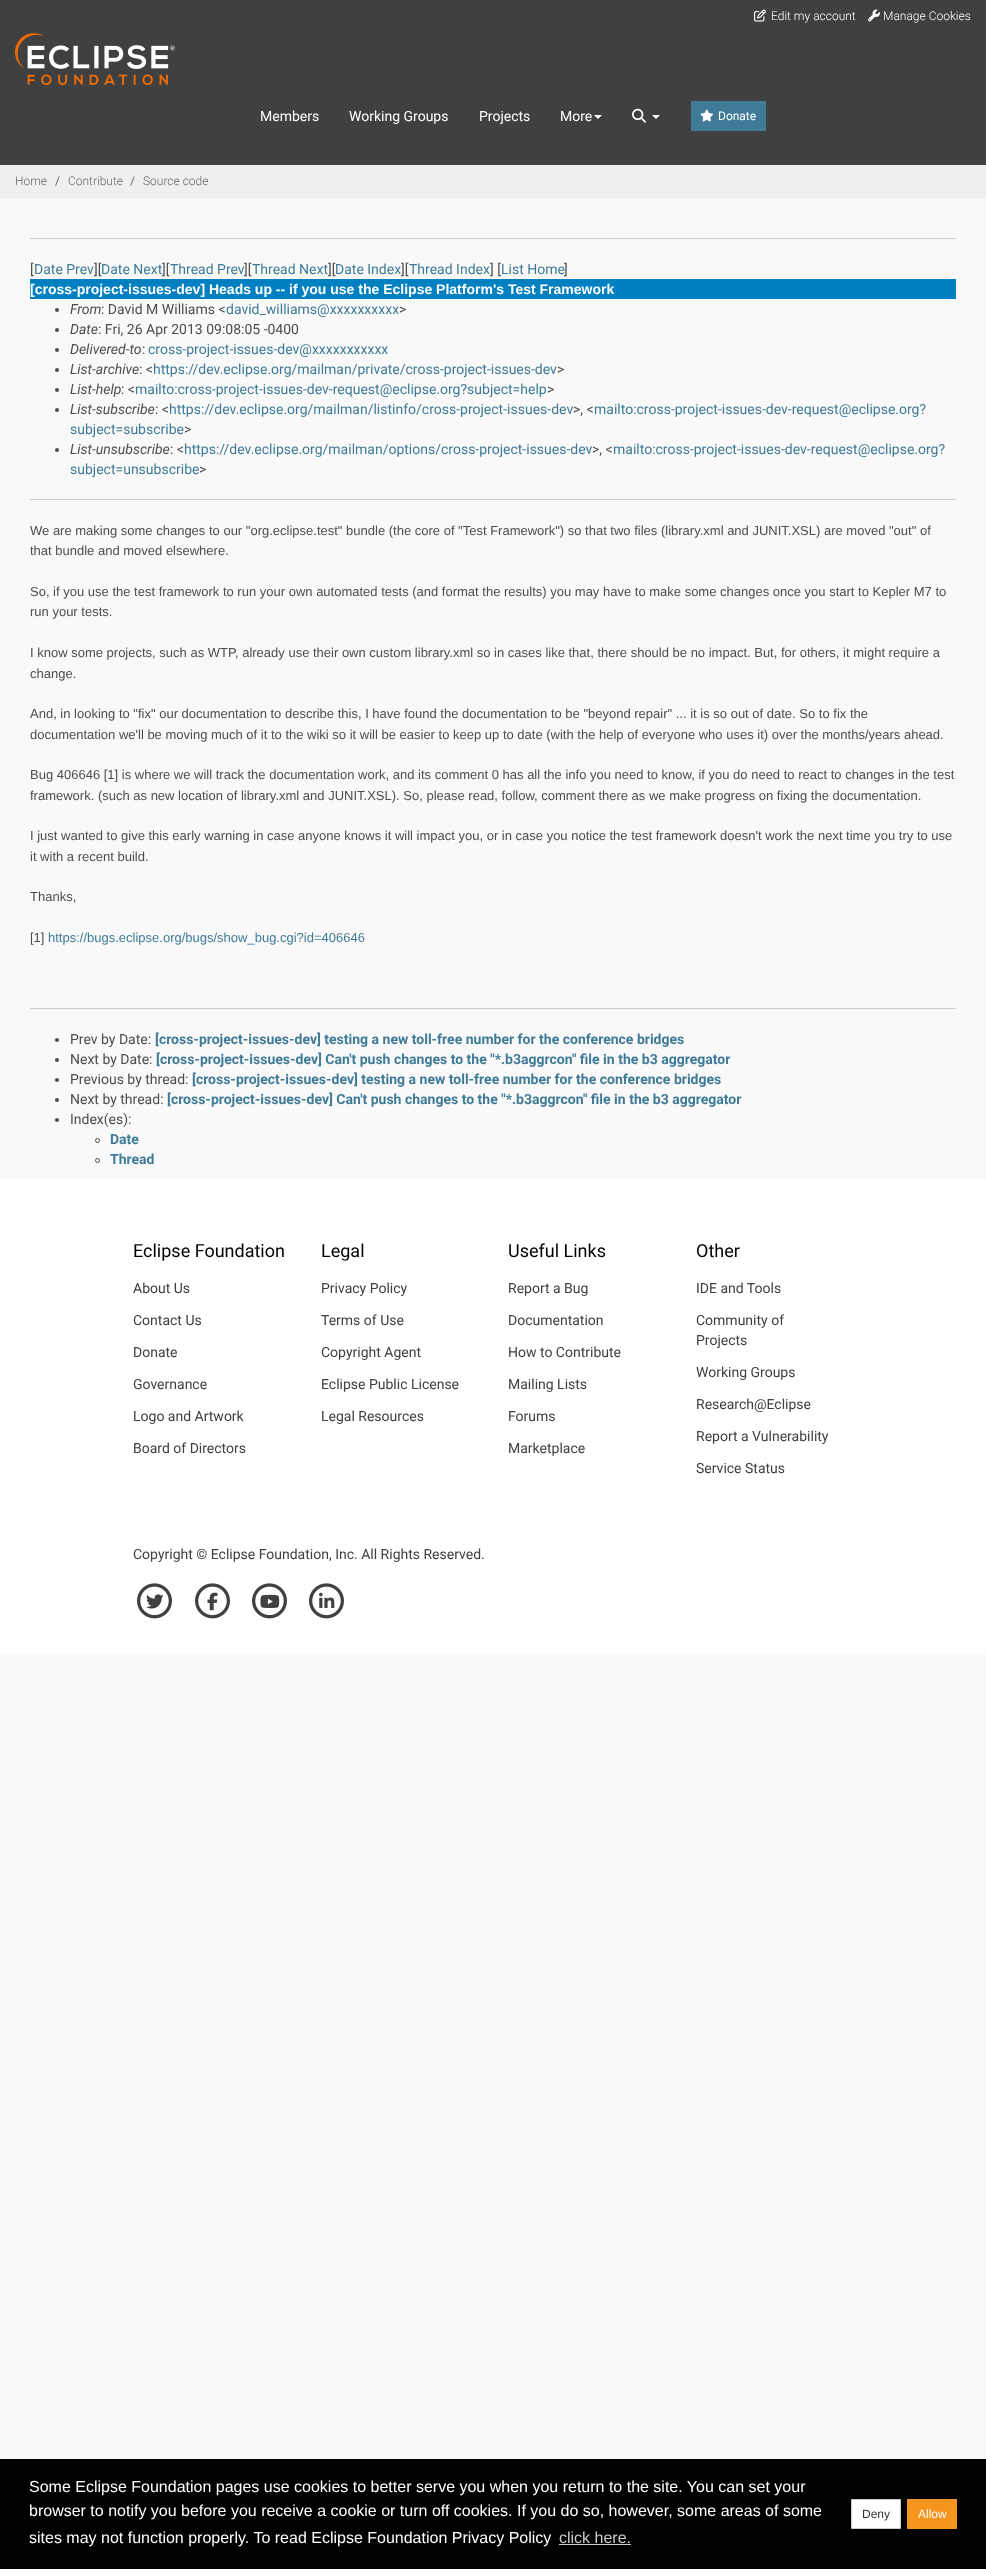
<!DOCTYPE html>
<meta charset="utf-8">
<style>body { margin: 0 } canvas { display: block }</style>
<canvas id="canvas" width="986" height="2569"></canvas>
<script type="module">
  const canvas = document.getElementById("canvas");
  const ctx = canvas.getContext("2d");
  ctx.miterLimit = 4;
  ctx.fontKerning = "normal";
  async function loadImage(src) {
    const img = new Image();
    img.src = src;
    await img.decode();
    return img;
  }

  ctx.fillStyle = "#f9f9f9";
  ctx.fillRect(0, 0, 986, 2569);
  ctx.fillStyle = "#404040";
  ctx.fillRect(0, 0, 986, 165);
  ctx.drawImage(await loadImage("img1.png"), 754, 9, 12, 13);
  ctx.font = "300 12px Roboto";
  ctx.fillStyle = "#ffffff";
  ctx.fillText("Edit my account", 771, 20);
  ctx.drawImage(await loadImage("img2.png"), 868, 9, 12, 13);
  ctx.fillText("Manage Cookies", 883, 20);
  ctx.drawImage(await loadImage("img3.png"), 15, 33, 160, 52);
  ctx.font = "14px Roboto";
  ctx.fillText("Members", 260, 121);
  ctx.fillText("Working Groups", 349, 121);
  ctx.fillText("Projects", 479, 121);
  ctx.fillText("More", 560, 121);
  ctx.beginPath();
  ctx.moveTo(594, 115);
  ctx.lineTo(602, 115);
  ctx.lineTo(598, 119);
  ctx.closePath();
  ctx.fill();
  ctx.drawImage(await loadImage("img4.png"), 632, 108, 14, 15);
  ctx.beginPath();
  ctx.moveTo(652, 115);
  ctx.lineTo(660, 115);
  ctx.lineTo(656, 119);
  ctx.closePath();
  ctx.fill();
  ctx.fillStyle = "#3f7b96";
  ctx.fillRect(691, 101, 75, 30);
  ctx.drawImage(await loadImage("img5.png"), 700, 109, 13, 13);
  ctx.font = "12px Roboto";
  ctx.fillStyle = "#ffffff";
  ctx.fillText("Donate", 718, 120);
  ctx.fillStyle = "#efefef";
  ctx.fillRect(0, 165, 986, 33);
  ctx.font = "300 12px Roboto";
  ctx.fillStyle = "#656668";
  ctx.fillText("Home", 15, 185);
  ctx.font = "12px Roboto";
  ctx.fillText("/", 55, 185);
  ctx.font = "300 12px Roboto";
  ctx.fillText("Contribute", 68, 185);
  ctx.font = "12px Roboto";
  ctx.fillText("/", 130, 185);
  ctx.font = "300 12px Roboto";
  ctx.fillText("Source code", 143, 185);
  ctx.fillStyle = "#cccccc";
  ctx.fillRect(30, 238, 926, 1);
  ctx.font = "14px Roboto";
  ctx.fillStyle = "#4c4d4e";
  ctx.fillText("[", 30, 274);
  ctx.fillStyle = "#3f7b96";
  ctx.fillText("Date Prev", 34, 274);
  ctx.fillStyle = "#4c4d4e";
  ctx.fillText("][", 94, 274);
  ctx.fillStyle = "#3f7b96";
  ctx.fillText("Date Next", 101, 274);
  ctx.fillStyle = "#4c4d4e";
  ctx.fillText("][", 162, 274);
  ctx.fillStyle = "#3f7b96";
  ctx.fillText("Thread Prev", 170, 274);
  ctx.fillStyle = "#4c4d4e";
  ctx.fillText("][", 244, 274);
  ctx.fillStyle = "#3f7b96";
  ctx.fillText("Thread Next", 252, 274);
  ctx.fillStyle = "#4c4d4e";
  ctx.fillText("][", 328, 274);
  ctx.fillStyle = "#3f7b96";
  ctx.fillText("Date Index", 335, 274);
  ctx.fillStyle = "#4c4d4e";
  ctx.fillText("][", 401, 274);
  ctx.fillStyle = "#3f7b96";
  ctx.fillText("Thread Index", 409, 274);
  ctx.fillStyle = "#4c4d4e";
  ctx.fillText("] [", 490, 274);
  ctx.fillStyle = "#3f7b96";
  ctx.fillText("List Home", 501, 274);
  ctx.fillStyle = "#4c4d4e";
  ctx.fillText("]", 564, 274);
  ctx.fillStyle = "#0080c0";
  ctx.fillRect(30, 279, 926, 20);
  ctx.font = "bold 14px Liberation Sans";
  ctx.fillStyle = "#ffffff";
  ctx.fillText("[cross-project-issues-dev] Heads up -- if you use the Eclipse Platform's Test Framework", 30, 294);
  ctx.fillStyle = "#4c4d4e";
  ctx.beginPath();
  ctx.arc(57, 310, 2, 0, Math.PI * 2);
  ctx.fill();
  ctx.font = "italic 14px Roboto";
  ctx.fillText("From", 70, 314);
  ctx.font = "14px Roboto";
  ctx.fillText(": David M Williams <", 101, 314);
  ctx.fillStyle = "#3f7b96";
  ctx.fillText("david_williams@xxxxxxxxxx", 226, 314);
  ctx.fillStyle = "#4c4d4e";
  ctx.fillText(">", 399, 314);
  ctx.beginPath();
  ctx.arc(57, 330, 2, 0, Math.PI * 2);
  ctx.fill();
  ctx.font = "italic 14px Roboto";
  ctx.fillText("Date", 70, 334);
  ctx.font = "14px Roboto";
  ctx.fillText(": Fri, 26 Apr 2013 09:08:05 -0400", 98, 334);
  ctx.beginPath();
  ctx.arc(57, 350, 2, 0, Math.PI * 2);
  ctx.fill();
  ctx.font = "italic 14px Roboto";
  ctx.fillText("Delivered-to", 70, 354);
  ctx.font = "14px Roboto";
  ctx.fillText(":", 142, 354);
  ctx.fillStyle = "#3f7b96";
  ctx.fillText("cross-project-issues-dev@xxxxxxxxxxx", 148, 354);
  ctx.fillStyle = "#4c4d4e";
  ctx.beginPath();
  ctx.arc(57, 370, 2, 0, Math.PI * 2);
  ctx.fill();
  ctx.font = "italic 14px Roboto";
  ctx.fillText("List-archive", 70, 374);
  ctx.font = "14px Roboto";
  ctx.fillText(": <", 139, 374);
  ctx.fillStyle = "#3f7b96";
  ctx.fillText("https://dev.eclipse.org/mailman/private/cross-project-issues-dev", 153, 374);
  ctx.fillStyle = "#4c4d4e";
  ctx.fillText(">", 557, 374);
  ctx.beginPath();
  ctx.arc(57, 390, 2, 0, Math.PI * 2);
  ctx.fill();
  ctx.font = "italic 14px Roboto";
  ctx.fillText("List-help", 70, 394);
  ctx.font = "14px Roboto";
  ctx.fillText(": <", 121, 394);
  ctx.fillStyle = "#3f7b96";
  ctx.fillText("mailto:cross-project-issues-dev-request@eclipse.org?subject=help", 135, 394);
  ctx.fillStyle = "#4c4d4e";
  ctx.fillText(">", 547, 394);
  ctx.beginPath();
  ctx.arc(57, 410, 2, 0, Math.PI * 2);
  ctx.fill();
  ctx.font = "italic 14px Roboto";
  ctx.fillText("List-subscribe", 70, 414);
  ctx.font = "14px Roboto";
  ctx.fillText(": <", 155, 414);
  ctx.fillStyle = "#3f7b96";
  ctx.fillText("https://dev.eclipse.org/mailman/listinfo/cross-project-issues-dev", 169, 414);
  ctx.fillStyle = "#4c4d4e";
  ctx.fillText(">, <", 573, 414);
  ctx.fillStyle = "#3f7b96";
  ctx.fillText("mailto:cross-project-issues-dev-request@eclipse.org?", 594, 414);
  ctx.fillText("subject=subscribe", 70, 434);
  ctx.fillStyle = "#4c4d4e";
  ctx.fillText(">", 184, 434);
  ctx.beginPath();
  ctx.arc(57, 450, 2, 0, Math.PI * 2);
  ctx.fill();
  ctx.font = "italic 14px Roboto";
  ctx.fillText("List-unsubscribe", 70, 454);
  ctx.font = "14px Roboto";
  ctx.fillText(": <", 170, 454);
  ctx.fillStyle = "#3f7b96";
  ctx.fillText("https://dev.eclipse.org/mailman/options/cross-project-issues-dev", 184, 454);
  ctx.fillStyle = "#4c4d4e";
  ctx.fillText(">, <", 592, 454);
  ctx.fillStyle = "#3f7b96";
  ctx.fillText("mailto:cross-project-issues-dev-request@eclipse.org?", 613, 454);
  ctx.fillText("subject=unsubscribe", 70, 474);
  ctx.fillStyle = "#4c4d4e";
  ctx.fillText(">", 199, 474);
  ctx.fillStyle = "#cccccc";
  ctx.fillRect(30, 499, 926, 1);
  ctx.font = "13px Liberation Sans";
  ctx.fillStyle = "#4c4d4e";
  ctx.fillText("We are making some changes to our \"org.eclipse.test\" bundle (the core of \"Test Framework\") so that two files (library.xml and JUNIT.XSL) are moved \"out\" of", 30, 535);
  ctx.fillText("that bundle and moved elsewhere.", 30, 555);
  ctx.fillText("So, if you use the test framework to run your own automated tests (and format the results) you may have to make some changes once you start to Kepler M7 to", 30, 596);
  ctx.fillText("run your tests.", 30, 616);
  ctx.fillText("I know some projects, such as WTP, already use their own custom library.xml so in cases like that, there should be no impact. But, for others, it might require a", 30, 657);
  ctx.fillText("change.", 30, 678);
  ctx.fillText("And, in looking to \"fix\" our documentation to describe this, I have found the documentation to be \"beyond repair\" ... it is so out of date. So to fix the", 30, 718);
  ctx.fillText("documentation we'll be moving much of it to the wiki so it will be easier to keep up to date (with the help of everyone who uses it) over the months/years ahead.", 30, 739);
  ctx.fillText("Bug 406646 [1] is where we will track the documentation work, and its comment 0 has all the info you need to know, if you do need to react to changes in the test", 30, 779);
  ctx.fillText("framework. (such as new location of library.xml and JUNIT.XSL). So, please read, follow, comment there as we make progress on fixing the documentation.", 30, 800);
  ctx.fillText("I just wanted to give this early warning in case anyone knows it will impact you, or in case you notice the test framework doesn't work the next time you try to use", 30, 840);
  ctx.fillText("it with a recent build.", 30, 861);
  ctx.fillText("Thanks,", 30, 901);
  ctx.fillText("[1]", 30, 942);
  ctx.fillStyle = "#3f7b96";
  ctx.fillText("https://bugs.eclipse.org/bugs/show_bug.cgi?id=406646", 48, 942);
  ctx.fillStyle = "#cccccc";
  ctx.fillRect(30, 1008, 926, 1);
  ctx.fillStyle = "#4c4d4e";
  ctx.beginPath();
  ctx.arc(57, 1040, 2, 0, Math.PI * 2);
  ctx.fill();
  ctx.font = "14px Roboto";
  ctx.fillText("Prev by Date:", 70, 1044);
  ctx.font = "bold 14px Roboto";
  ctx.fillStyle = "#3f7b96";
  ctx.fillText("[cross-project-issues-dev] testing a new toll-free number for the conference bridges", 155, 1044);
  ctx.fillStyle = "#4c4d4e";
  ctx.beginPath();
  ctx.arc(57, 1060, 2, 0, Math.PI * 2);
  ctx.fill();
  ctx.font = "14px Roboto";
  ctx.fillText("Next by Date:", 70, 1064);
  ctx.font = "bold 14px Roboto";
  ctx.fillStyle = "#3f7b96";
  ctx.fillText("[cross-project-issues-dev] Can't push changes to the \"*.b3aggrcon\" file in the b3 aggregator", 156, 1064);
  ctx.fillStyle = "#4c4d4e";
  ctx.beginPath();
  ctx.arc(57, 1080, 2, 0, Math.PI * 2);
  ctx.fill();
  ctx.font = "14px Roboto";
  ctx.fillText("Previous by thread:", 70, 1084);
  ctx.font = "bold 14px Roboto";
  ctx.fillStyle = "#3f7b96";
  ctx.fillText("[cross-project-issues-dev] testing a new toll-free number for the conference bridges", 192, 1084);
  ctx.fillStyle = "#4c4d4e";
  ctx.beginPath();
  ctx.arc(57, 1100, 2, 0, Math.PI * 2);
  ctx.fill();
  ctx.font = "14px Roboto";
  ctx.fillText("Next by thread:", 70, 1104);
  ctx.font = "bold 14px Roboto";
  ctx.fillStyle = "#3f7b96";
  ctx.fillText("[cross-project-issues-dev] Can't push changes to the \"*.b3aggrcon\" file in the b3 aggregator", 167, 1104);
  ctx.fillStyle = "#4c4d4e";
  ctx.beginPath();
  ctx.arc(57, 1120, 2, 0, Math.PI * 2);
  ctx.fill();
  ctx.font = "14px Roboto";
  ctx.fillText("Index(es):", 70, 1124);
  ctx.beginPath();
  ctx.arc(97.5, 1140.5, 2, 0, Math.PI * 2);
  ctx.strokeStyle = "#4c4d4e";
  ctx.stroke();
  ctx.font = "bold 14px Roboto";
  ctx.fillStyle = "#3f7b96";
  ctx.fillText("Date", 110, 1144);
  ctx.beginPath();
  ctx.arc(97.5, 1160.5, 2, 0, Math.PI * 2);
  ctx.stroke();
  ctx.fillText("Thread", 110, 1164);
  ctx.fillStyle = "#ffffff";
  ctx.fillRect(0, 1179, 986, 476);
  ctx.font = "18px Roboto";
  ctx.fillStyle = "#000000";
  ctx.fillText("Eclipse Foundation", 133, 1257);
  ctx.font = "14px Roboto";
  ctx.fillStyle = "#404040";
  ctx.fillText("About Us", 133, 1293);
  ctx.fillText("Contact Us", 133, 1325);
  ctx.fillText("Donate", 133, 1357);
  ctx.fillText("Governance", 133, 1389);
  ctx.fillText("Logo and Artwork", 133, 1421);
  ctx.fillText("Board of Directors", 133, 1453);
  ctx.font = "18px Roboto";
  ctx.fillStyle = "#000000";
  ctx.fillText("Legal", 321, 1257);
  ctx.font = "14px Roboto";
  ctx.fillStyle = "#404040";
  ctx.fillText("Privacy Policy", 321, 1293);
  ctx.fillText("Terms of Use", 321, 1325);
  ctx.fillText("Copyright Agent", 321, 1357);
  ctx.fillText("Eclipse Public License", 321, 1389);
  ctx.fillText("Legal Resources", 321, 1421);
  ctx.font = "18px Roboto";
  ctx.fillStyle = "#000000";
  ctx.fillText("Useful Links", 508, 1257);
  ctx.font = "14px Roboto";
  ctx.fillStyle = "#404040";
  ctx.fillText("Report a Bug", 508, 1293);
  ctx.fillText("Documentation", 508, 1325);
  ctx.fillText("How to Contribute", 508, 1357);
  ctx.fillText("Mailing Lists", 508, 1389);
  ctx.fillText("Forums", 508, 1421);
  ctx.fillText("Marketplace", 508, 1453);
  ctx.font = "18px Roboto";
  ctx.fillStyle = "#000000";
  ctx.fillText("Other", 696, 1257);
  ctx.font = "14px Roboto";
  ctx.fillStyle = "#404040";
  ctx.fillText("IDE and Tools", 696, 1293);
  ctx.fillText("Community of", 696, 1325);
  ctx.fillText("Projects", 696, 1345);
  ctx.fillText("Working Groups", 696, 1377);
  ctx.fillText("Research@Eclipse", 696, 1409);
  ctx.fillText("Report a Vulnerability", 696, 1441);
  ctx.fillText("Service Status", 696, 1473);
  ctx.fillText("Copyright © Eclipse Foundation, Inc. All Rights Reserved.", 133, 1559);
  ctx.drawImage(await loadImage("img6.png"), 137, 1583, 35, 36);
  ctx.drawImage(await loadImage("img7.png"), 146, 1594, 18, 15);
  ctx.drawImage(await loadImage("img6.png"), 195, 1583, 35, 36);
  ctx.drawImage(await loadImage("img8.png"), 207, 1592, 11, 19);
  ctx.drawImage(await loadImage("img6.png"), 252, 1583, 35, 36);
  ctx.drawImage(await loadImage("img9.png"), 260, 1594, 20, 14);
  ctx.drawImage(await loadImage("img6.png"), 309, 1583, 35, 36);
  ctx.drawImage(await loadImage("img10.png"), 319, 1592, 16, 16);
  ctx.fillStyle = "#000000";
  ctx.fillRect(0, 2459, 986, 110);
  ctx.font = "16px Liberation Sans";
  ctx.fillStyle = "#ffffff";
  ctx.fillText("Some Eclipse Foundation pages use cookies to better serve you when you return to the site. You can set your", 29, 2492);
  ctx.fillText("browser to notify you before you receive a cookie or turn off cookies. If you do so, however, some areas of some", 29, 2516);
  ctx.fillText("sites may not function properly. To read Eclipse Foundation Privacy Policy", 29, 2543);
  ctx.fillStyle = "#cccccc";
  ctx.fillText("click here.", 559, 2543);
  ctx.fillRect(559, 2544, 72, 1);
  ctx.fillStyle = "#ffffff";
  ctx.beginPath();
  ctx.rect(851.5, 2499.5, 49, 29);
  ctx.fill();
  ctx.strokeStyle = "#cccccc";
  ctx.stroke();
  ctx.font = "12px Liberation Sans";
  ctx.fillStyle = "#333333";
  ctx.fillText("Deny", 862, 2518);
  ctx.fillStyle = "#f7941e";
  ctx.fillRect(907, 2499, 50, 30);
  ctx.fillStyle = "#ffffff";
  ctx.fillText("Allow", 918, 2518);
</script>
